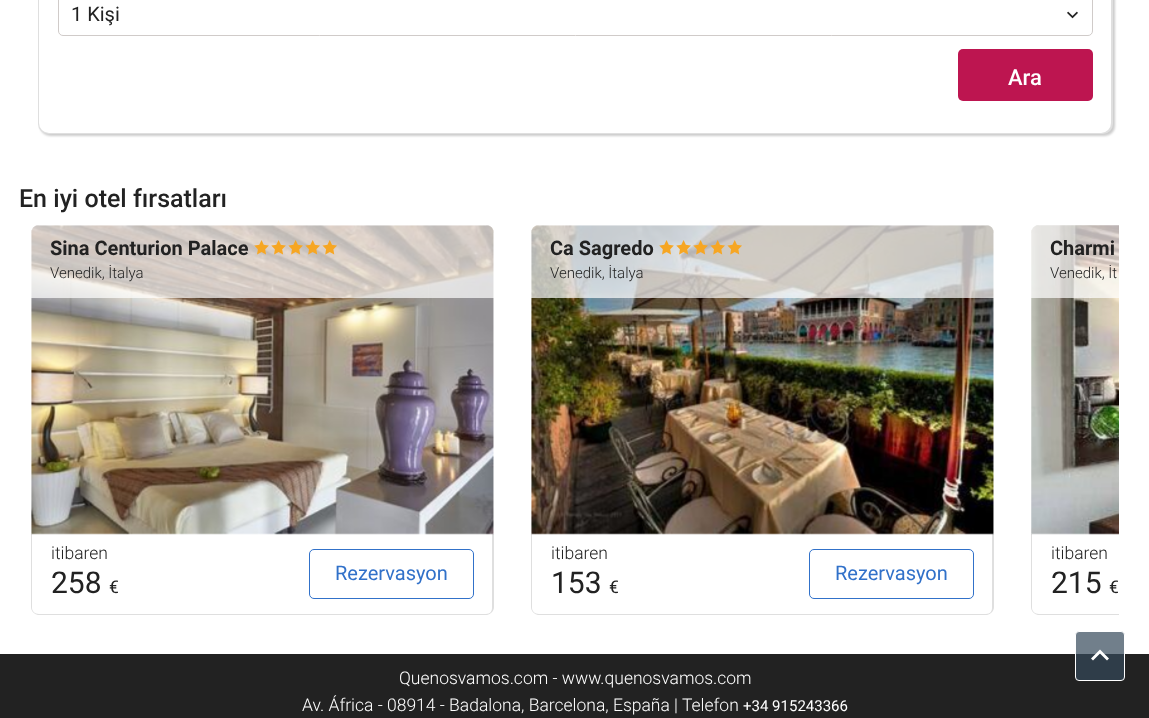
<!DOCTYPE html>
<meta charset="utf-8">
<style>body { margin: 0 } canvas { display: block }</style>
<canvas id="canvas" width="1149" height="718"></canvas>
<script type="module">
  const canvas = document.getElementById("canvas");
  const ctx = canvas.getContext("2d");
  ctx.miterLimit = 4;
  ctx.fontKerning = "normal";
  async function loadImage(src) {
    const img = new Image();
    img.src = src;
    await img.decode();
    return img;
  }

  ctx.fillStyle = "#ffffff";
  ctx.fillRect(0, 0, 1149, 718);
  ctx.fillStyle = "rgba(0, 0, 0, 0.2)";
  ctx.filter = "blur(1px)";
  ctx.beginPath();
  ctx.roundRect(40, -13, 1075, 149, 10);
  ctx.fill();
  ctx.filter = "none";
  ctx.fillStyle = "#dfdfdf";
  ctx.beginPath();
  ctx.roundRect(38, -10, 1075, 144, 10);
  ctx.fill();
  ctx.fillStyle = "#ffffff";
  ctx.beginPath();
  ctx.roundRect(39, -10, 1072, 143, 10);
  ctx.fill();
  ctx.beginPath();
  ctx.roundRect(58.5, -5.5, 1034, 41, 4.5);
  ctx.strokeStyle = "#d0cbc9";
  ctx.stroke();
  ctx.font = "20px Roboto";
  ctx.fillStyle = "#222222";
  ctx.fillText("1 Kişi", 71, 21);
  ctx.drawImage(await loadImage("img1.png"), 1067, 11, 11, 8);
  ctx.fillStyle = "#bd1550";
  ctx.beginPath();
  ctx.roundRect(958, 49, 135, 52, 5);
  ctx.fill();
  ctx.font = "500 22px Roboto";
  ctx.fillStyle = "#ffffff";
  ctx.fillText("Ara", 1008, 85);
  ctx.font = "500 25px Roboto";
  ctx.fillStyle = "#222222";
  ctx.fillText("En iyi otel fırsatları", 19, 207);
  ctx.fillStyle = "#dfdfdf";
  ctx.beginPath();
  ctx.moveTo(32, 534);
  ctx.lineTo(31, 534);
  ctx.lineTo(31, 607);
  ctx.bezierCurveTo(31, 611, 34, 614, 38, 615);
  ctx.lineTo(487, 615);
  ctx.bezierCurveTo(491, 614, 494, 611, 494, 607);
  ctx.lineTo(494, 534);
  ctx.lineTo(492, 534);
  ctx.lineTo(492, 608);
  ctx.bezierCurveTo(492, 611, 490, 614, 486, 614);
  ctx.lineTo(39, 614);
  ctx.bezierCurveTo(35, 614, 32, 611, 32, 608);
  ctx.closePath();
  ctx.fill();
  ctx.drawImage(await loadImage("img2.png"), 31, 225, 463, 310);
  ctx.fillStyle = "rgba(255, 255, 255, 0.7)";
  ctx.beginPath();
  ctx.roundRect(31, 225, 463, 73, [8, 8, 0, 0]);
  ctx.fill();
  ctx.font = "bold 20px Roboto";
  ctx.fillStyle = "#222222";
  ctx.fillText("Sina Centurion Palace", 50, 255);
  ctx.drawImage(await loadImage("img3.png"), 254, 240, 83, 15);
  ctx.font = "300 15px Roboto";
  ctx.fillText("Venedik, İtalya", 50, 278);
  ctx.font = "300 17.5px Roboto";
  ctx.fillText("itibaren", 51, 559);
  ctx.font = "30px Roboto";
  ctx.fillText("258", 51, 593);
  ctx.font = "17.5px Roboto";
  ctx.fillText("€", 109, 593);
  ctx.beginPath();
  ctx.roundRect(309.5, 549.5, 164, 49, 4.5);
  ctx.strokeStyle = "#3171c9";
  ctx.stroke();
  ctx.font = "20px Roboto";
  ctx.fillStyle = "#3171c9";
  ctx.fillText("Rezervasyon", 335, 580);
  ctx.fillStyle = "#dfdfdf";
  ctx.beginPath();
  ctx.moveTo(532, 534);
  ctx.lineTo(531, 534);
  ctx.lineTo(531, 607);
  ctx.bezierCurveTo(531, 611, 534, 614, 538, 615);
  ctx.lineTo(987, 615);
  ctx.bezierCurveTo(991, 614, 994, 611, 994, 607);
  ctx.lineTo(994, 534);
  ctx.lineTo(992, 534);
  ctx.lineTo(992, 608);
  ctx.bezierCurveTo(992, 611, 990, 614, 986, 614);
  ctx.lineTo(539, 614);
  ctx.bezierCurveTo(535, 614, 532, 611, 532, 608);
  ctx.closePath();
  ctx.fill();
  ctx.drawImage(await loadImage("img4.png"), 531, 225, 463, 310);
  ctx.fillStyle = "rgba(255, 255, 255, 0.7)";
  ctx.beginPath();
  ctx.roundRect(531, 225, 463, 73, [8, 8, 0, 0]);
  ctx.fill();
  ctx.font = "bold 20px Roboto";
  ctx.fillStyle = "#222222";
  ctx.fillText("Ca Sagredo", 550, 255);
  ctx.drawImage(await loadImage("img5.png"), 659, 240, 83, 15);
  ctx.font = "300 15px Roboto";
  ctx.fillText("Venedik, İtalya", 550, 278);
  ctx.font = "300 17.5px Roboto";
  ctx.fillText("itibaren", 551, 559);
  ctx.font = "30px Roboto";
  ctx.fillText("153", 551, 593);
  ctx.font = "17.5px Roboto";
  ctx.fillText("€", 609, 593);
  ctx.beginPath();
  ctx.roundRect(809.5, 549.5, 164, 49, 4.5);
  ctx.stroke();
  ctx.font = "20px Roboto";
  ctx.fillStyle = "#3171c9";
  ctx.fillText("Rezervasyon", 835, 580);
  ctx.save();
  ctx.beginPath();
  ctx.rect(31, 225, 1088, 390);
  ctx.clip();
  ctx.fillStyle = "#dfdfdf";
  ctx.beginPath();
  ctx.moveTo(1032, 534);
  ctx.lineTo(1031, 534);
  ctx.lineTo(1031, 607);
  ctx.bezierCurveTo(1031, 611, 1034, 614, 1038, 615);
  ctx.lineTo(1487, 615);
  ctx.bezierCurveTo(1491, 614, 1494, 611, 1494, 607);
  ctx.lineTo(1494, 534);
  ctx.lineTo(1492, 534);
  ctx.lineTo(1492, 608);
  ctx.bezierCurveTo(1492, 611, 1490, 614, 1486, 614);
  ctx.lineTo(1039, 614);
  ctx.bezierCurveTo(1035, 614, 1032, 611, 1032, 608);
  ctx.closePath();
  ctx.fill();
  ctx.restore();
  ctx.drawImage(await loadImage("img6.png"), 1031, 225, 88, 310);
  ctx.fillStyle = "rgba(255, 255, 255, 0.7)";
  ctx.beginPath();
  ctx.roundRect(1031, 225, 88, 73, [8, 0, 0, 0]);
  ctx.fill();
  ctx.font = "bold 20px Roboto";
  ctx.fillStyle = "#222222";
  ctx.fillText("Charmi", 1050, 255);
  ctx.font = "300 15px Roboto";
  ctx.fillText("Venedik, İt", 1050, 278);
  ctx.font = "300 17.5px Roboto";
  ctx.fillText("itibaren", 1051, 559);
  ctx.font = "30px Roboto";
  ctx.fillText("215", 1051, 593);
  ctx.font = "17.5px Roboto";
  ctx.fillText("€", 1109, 593);
  ctx.fillRect(0, 654, 1149, 64);
  ctx.fillStyle = "rgba(53, 73, 90, 0.7)";
  ctx.beginPath();
  ctx.roundRect(1075.5, 631.5, 49, 49, 3.5);
  ctx.fill();
  ctx.strokeStyle = "#ffffff";
  ctx.stroke();
  ctx.fillStyle = "#ffffff";
  ctx.beginPath();
  ctx.moveTo(1107, 660.5);
  ctx.lineTo(1100, 653.5);
  ctx.lineTo(1093, 660.5);
  ctx.lineTo(1091, 658.5);
  ctx.lineTo(1100, 649.5);
  ctx.lineTo(1109, 658.5);
  ctx.closePath();
  ctx.fill("evenodd");
  ctx.font = "300 17.5px Roboto";
  ctx.fillText("Quenosvamos.com - www.quenosvamos.com", 399, 684);
  ctx.fillText("Av. África - 08914 - Badalona, Barcelona, España | Telefon", 302, 711);
  ctx.font = "15px Roboto";
  ctx.fillText("+34 915243366", 743, 711);
</script>
